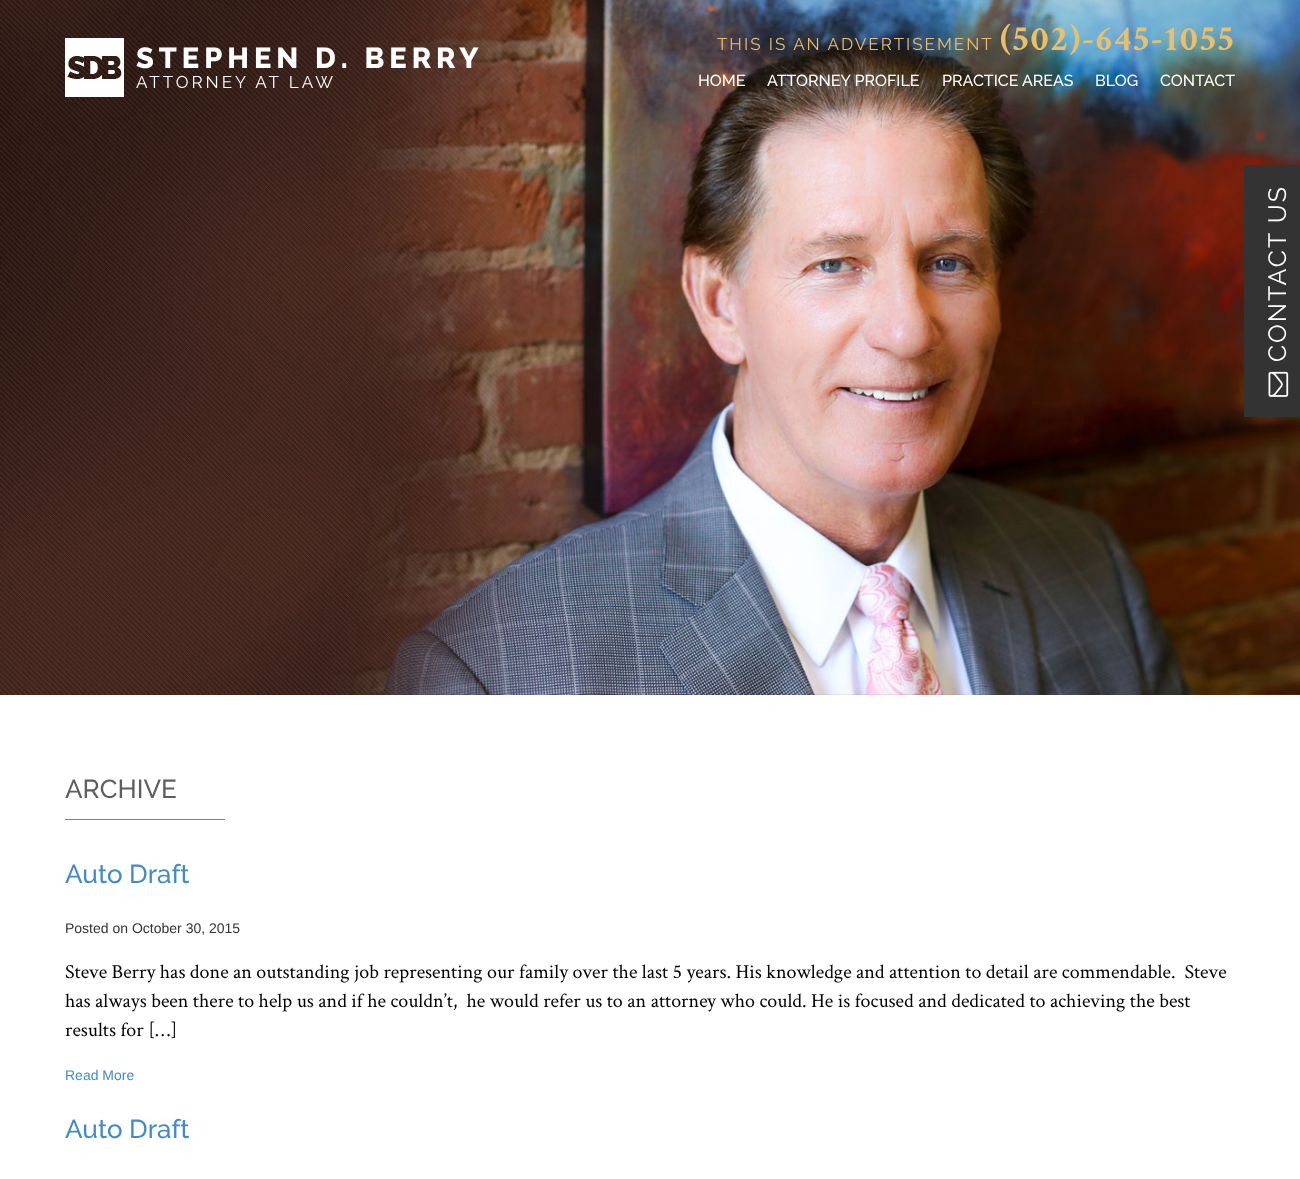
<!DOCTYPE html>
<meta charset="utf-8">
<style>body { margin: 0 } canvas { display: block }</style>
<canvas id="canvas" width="1300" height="1179"></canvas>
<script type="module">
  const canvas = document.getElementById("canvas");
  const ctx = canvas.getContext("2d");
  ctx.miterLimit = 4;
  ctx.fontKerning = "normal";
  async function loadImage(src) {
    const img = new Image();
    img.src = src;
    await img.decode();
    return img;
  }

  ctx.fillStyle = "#ffffff";
  ctx.fillRect(0, 0, 1300, 1179);
  ctx.drawImage(await loadImage("img1.png"), 0, 0, 1300, 695);
  ctx.letterSpacing = "2px";
  ctx.font = "17px Raleway";
  ctx.fillStyle = "#eabf6b";
  ctx.fillText("THIS IS AN ADVERTISEMENT", 717, 50);
  ctx.font = "bold 36px Crimson Text";
  ctx.fillText("(502)-645-1055", 1000, 50);
  ctx.drawImage(await loadImage("img2.png"), 65, 38, 59, 59);
  ctx.letterSpacing = "5px";
  ctx.font = "800 29px Raleway";
  ctx.fillStyle = "#ffffff";
  ctx.fillText("STEPHEN D. BERRY", 136, 68);
  ctx.letterSpacing = "3px";
  ctx.font = "17px Raleway";
  ctx.fillText("ATTORNEY AT LAW", 136, 88);
  ctx.letterSpacing = "0px";
  ctx.font = "500 16px Raleway";
  ctx.fillText("HOME", 698, 86);
  ctx.fillText("ATTORNEY PROFILE", 767, 86);
  ctx.fillText("PRACTICE AREAS", 942, 86);
  ctx.fillText("BLOG", 1095, 86);
  ctx.fillText("CONTACT", 1160, 86);
  ctx.fillStyle = "#333333";
  ctx.fillRect(1244, 165, 56, 252);
  ctx.letterSpacing = "2px";
  ctx.font = "25px Raleway";
  ctx.fillStyle = "#ffffff";
  ctx.save();
  ctx.translate(1286, 362);
  ctx.rotate(-90 * Math.PI / 180);
  ctx.fillText("CONTACT US", 0, 0);
  ctx.restore();
  ctx.drawImage(await loadImage("img3.png"), 1268, 371, 21, 26);
  ctx.letterSpacing = "0px";
  ctx.font = "500 26px Raleway";
  ctx.fillStyle = "#5f5e5e";
  ctx.fillText("ARCHIVE", 65, 798);
  ctx.fillStyle = "#818181";
  ctx.fillRect(65, 819, 160, 1);
  ctx.fillStyle = "#428bca";
  ctx.fillText("Auto Draft", 65, 883);
  ctx.font = "14px Liberation Sans";
  ctx.fillStyle = "#333333";
  ctx.fillText("Posted on October 30, 2015", 65, 933);
  ctx.font = "20px Crimson Text";
  ctx.fillStyle = "#000000";
  ctx.fillText("Steve Berry has done an outstanding job representing our family over the last 5 years. His knowledge and attention to detail are commendable.  Steve", 65, 978);
  ctx.fillText("has always been there to help us and if he couldn’t,  he would refer us to an attorney who could. He is focused and dedicated to achieving the best", 65, 1007);
  ctx.fillText("results for […]", 65, 1036);
  ctx.font = "14px Liberation Sans";
  ctx.fillStyle = "#428bca";
  ctx.fillText("Read More", 65, 1080);
  ctx.font = "500 26px Raleway";
  ctx.fillText("Auto Draft", 65, 1138);
</script>
